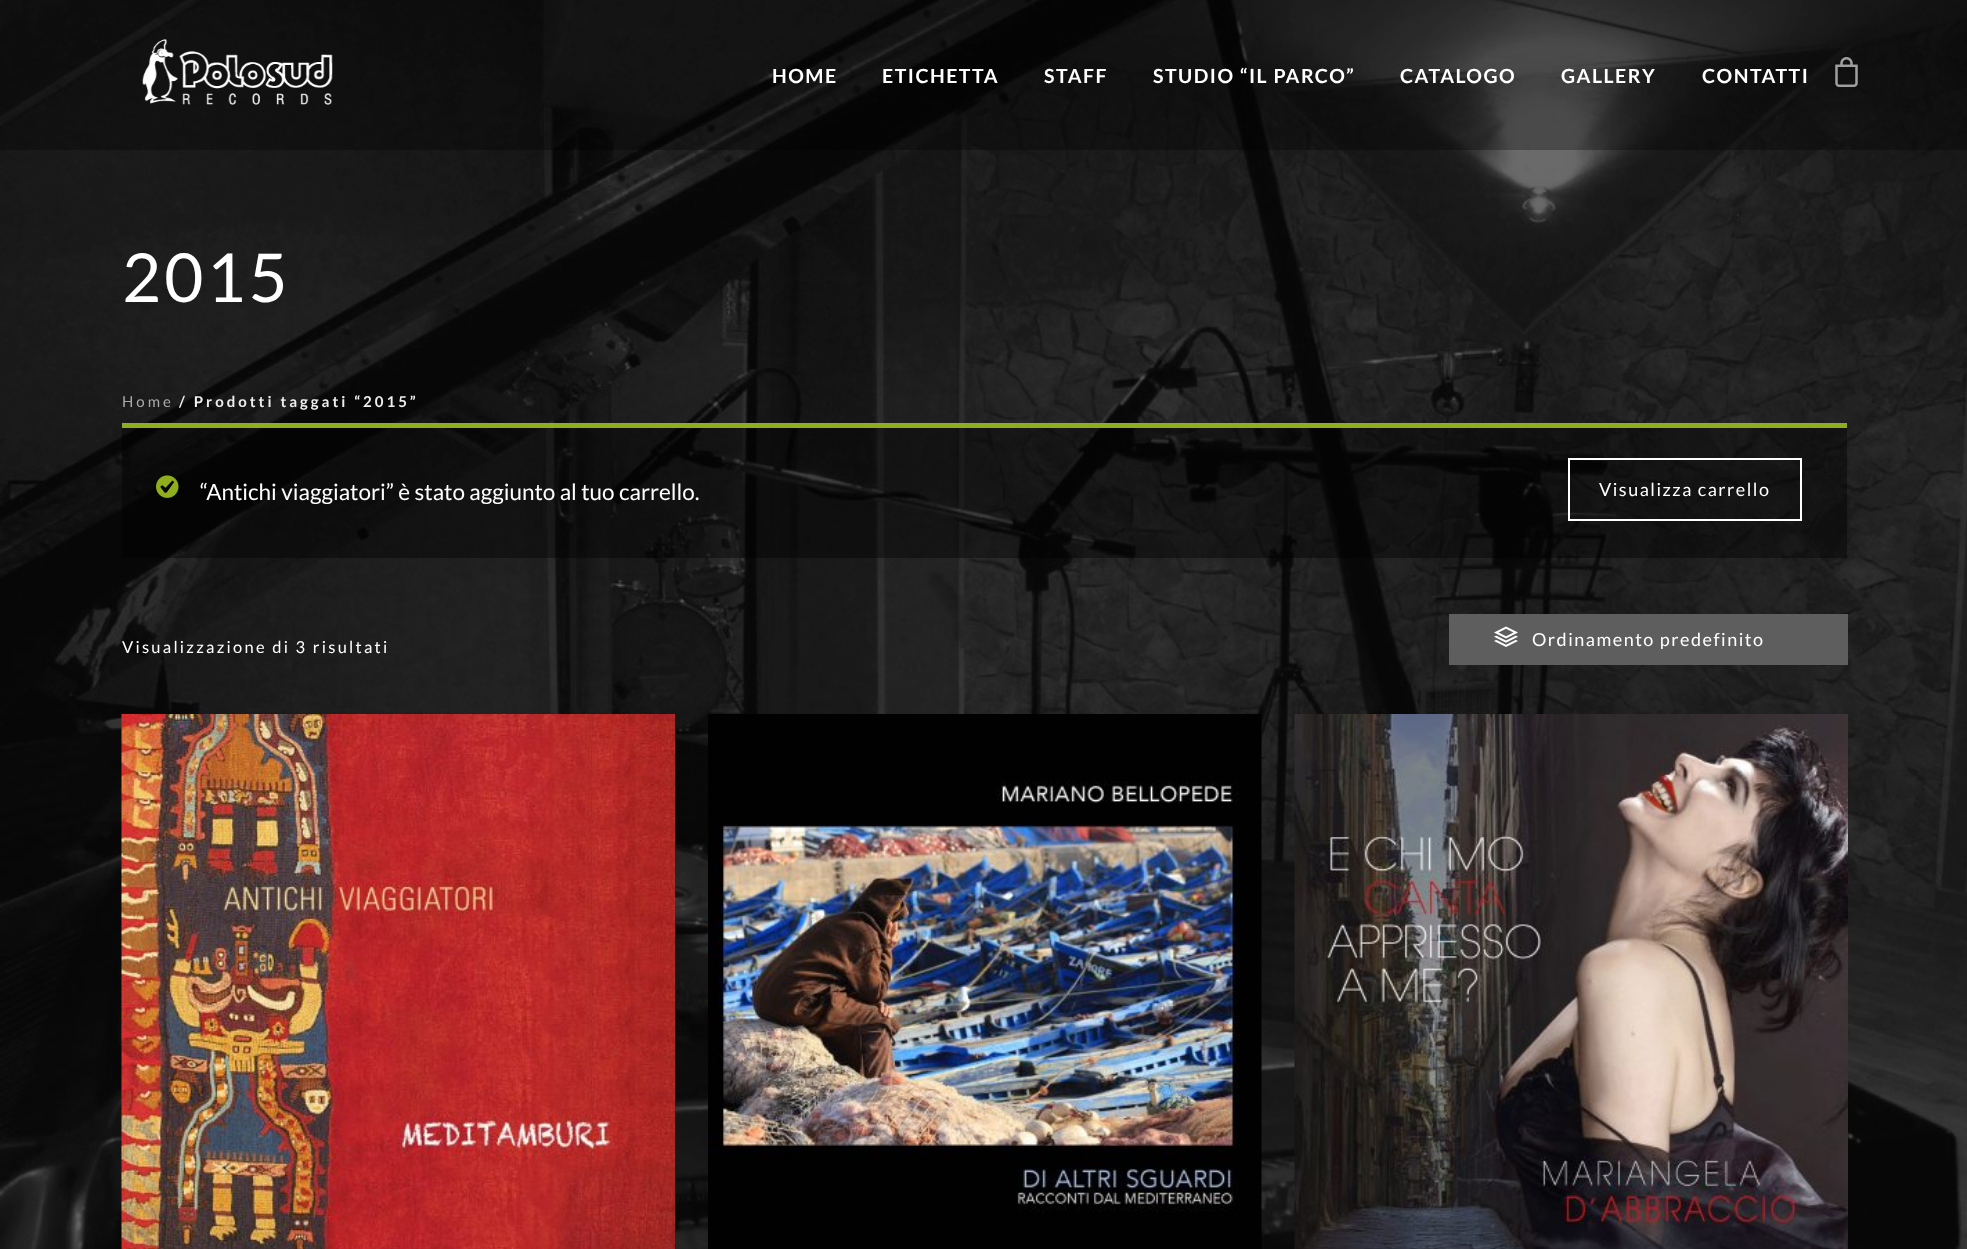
<!DOCTYPE html>
<meta charset="utf-8">
<style>body { margin: 0 } canvas { display: block }</style>
<canvas id="canvas" width="1967" height="1249"></canvas>
<script type="module">
  const canvas = document.getElementById("canvas");
  const ctx = canvas.getContext("2d");
  ctx.miterLimit = 4;
  ctx.fontKerning = "normal";
  async function loadImage(src) {
    const img = new Image();
    img.src = src;
    await img.decode();
    return img;
  }

  ctx.fillStyle = "#ffffff";
  ctx.fillRect(0, 0, 1967, 1249);
  ctx.drawImage(await loadImage("img1.png"), 0, 0, 1967, 1249);
  ctx.fillStyle = "rgba(0, 0, 0, 0.3)";
  ctx.fillRect(0, 0, 1967, 150);
  ctx.drawImage(await loadImage("img2.png"), 142, 39, 191, 66);
  ctx.letterSpacing = "1.5px";
  ctx.font = "bold 19.5px Lato";
  ctx.fillStyle = "#ffffff";
  ctx.fillText("HOME", 772, 83);
  ctx.fillText("ETICHETTA", 882, 83);
  ctx.fillText("STAFF", 1044, 83);
  ctx.fillText("STUDIO “IL PARCO”", 1153, 83);
  ctx.fillText("CATALOGO", 1400, 83);
  ctx.fillText("GALLERY", 1561, 83);
  ctx.fillText("CONTATTI", 1702, 83);
  ctx.drawImage(await loadImage("img3.png"), 1835, 57, 23, 30);
  ctx.letterSpacing = "3px";
  ctx.font = "67.5px Lato";
  ctx.fillText("2015", 122, 302);
  ctx.font = "15px Lato";
  ctx.fillStyle = "#aaaaaa";
  ctx.fillText("Home", 122, 407);
  ctx.font = "bold 15px Lato";
  ctx.fillStyle = "#eeeeee";
  ctx.fillText("/ Prodotti taggati “2015”", 179, 407);
  ctx.fillStyle = "rgba(0, 0, 0, 0.4)";
  ctx.fillRect(122, 428, 1725, 130);
  ctx.fillStyle = "#8fae1b";
  ctx.fillRect(122, 423, 1725, 5);
  ctx.drawImage(await loadImage("img4.png"), 156, 475, 23, 23);
  ctx.letterSpacing = "0px";
  ctx.font = "22.5px Lato";
  ctx.fillStyle = "#ffffff";
  ctx.fillText("“Antichi viaggiatori” è stato aggiunto al tuo carrello.", 200, 500);
  ctx.strokeStyle = "#ffffff";
  ctx.lineWidth = 2;
  ctx.strokeRect(1569, 459, 232, 61);
  ctx.letterSpacing = "1.5px";
  ctx.font = "18px Lato";
  ctx.fillText("Visualizza carrello", 1599, 496);
  ctx.letterSpacing = "2.25px";
  ctx.font = "16.5px Lato";
  ctx.fillText("Visualizzazione di 3 risultati", 122, 653);
  ctx.fillStyle = "#5e5e5e";
  ctx.fillRect(1449, 614, 399, 51);
  ctx.drawImage(await loadImage("img5.png"), 1494, 626, 24, 21);
  ctx.letterSpacing = "1.5px";
  ctx.font = "18px Lato";
  ctx.fillStyle = "#ffffff";
  ctx.fillText("Ordinamento predefinito", 1532, 646);
  ctx.drawImage(await loadImage("img6.png"), 121, 714, 554, 535);
  ctx.drawImage(await loadImage("img7.png"), 708, 714, 554, 535);
  ctx.drawImage(await loadImage("img8.png"), 1294, 714, 554, 535);
</script>
